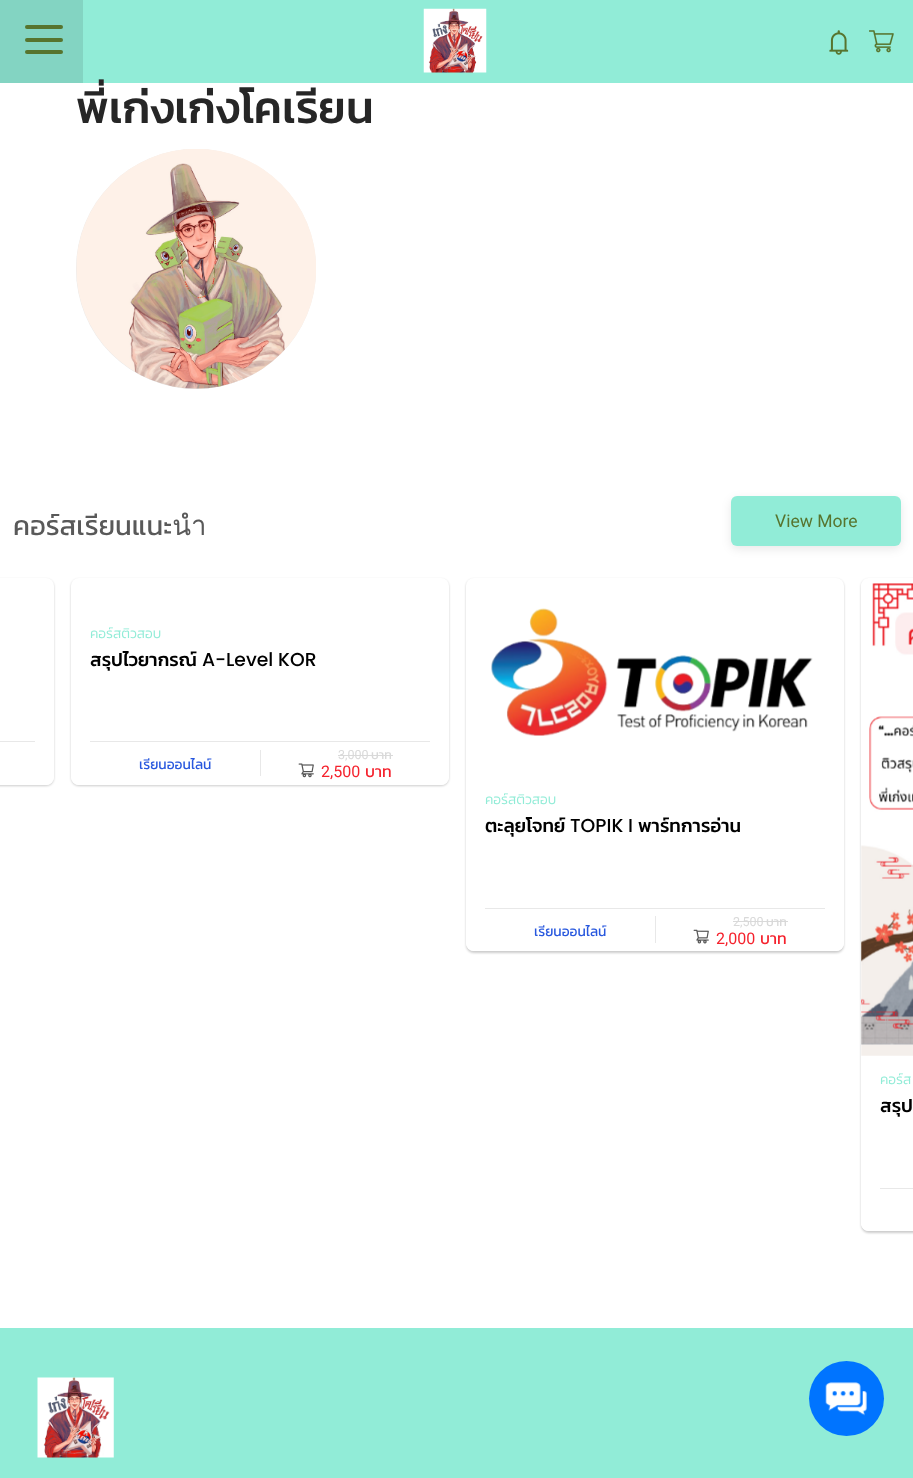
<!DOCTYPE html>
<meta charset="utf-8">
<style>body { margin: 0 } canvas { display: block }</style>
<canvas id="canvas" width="913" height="1478"></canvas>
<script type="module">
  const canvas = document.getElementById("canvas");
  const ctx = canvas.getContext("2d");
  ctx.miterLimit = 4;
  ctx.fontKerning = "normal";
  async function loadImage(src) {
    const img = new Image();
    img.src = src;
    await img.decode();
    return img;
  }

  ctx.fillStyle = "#ffffff";
  ctx.fillRect(0, 0, 913, 1478);
  ctx.fillStyle = "#91ecd7";
  ctx.fillRect(83, 0, 830, 83);
  ctx.fillStyle = "#83d4c2";
  ctx.fillRect(0, 0, 83, 83);
  ctx.fillStyle = "#57742e";
  ctx.beginPath();
  ctx.roundRect(25, 25, 38, 4, 2);
  ctx.fill();
  ctx.beginPath();
  ctx.roundRect(25, 38, 38, 4, 2);
  ctx.fill();
  ctx.beginPath();
  ctx.roundRect(25, 50, 38, 4, 2);
  ctx.fill();
  ctx.drawImage(await loadImage("img1.png"), 423, 8, 64, 65);
  ctx.drawImage(await loadImage("img2.png"), 829, 30, 20, 25);
  ctx.drawImage(await loadImage("img3.png"), 869, 30, 25, 23);
  ctx.fillStyle = "#91ecd7";
  ctx.fillRect(0, 1328, 913, 150);
  ctx.fillStyle = "#0074ff";
  ctx.beginPath();
  ctx.arc(846.5, 1398.5, 37.5, 0, Math.PI * 2);
  ctx.fill();
  ctx.drawImage(await loadImage("img4.png"), 825, 1382, 42, 34);
  ctx.font = "500 45px Kanit";
  ctx.fillStyle = "#262626";
  ctx.fillText("พี่เก่งเก่งโคเรียน", 76, 123);
  ctx.fillStyle = "#e8e8e8";
  ctx.beginPath();
  ctx.arc(196, 269, 120, 0, Math.PI * 2);
  ctx.fill();
  ctx.drawImage(await loadImage("img5.png"), 76, 149, 240, 240);
  ctx.font = "27.5px Kanit";
  ctx.fillStyle = "#595959";
  ctx.fillText("คอร์สเรียนแนะนำ", 13, 535);
  ctx.fillStyle = "rgba(0, 0, 0, 0.09)";
  ctx.filter = "blur(5px)";
  ctx.beginPath();
  ctx.roundRect(731, 499, 170, 50, 6);
  ctx.fill();
  ctx.filter = "none";
  ctx.fillStyle = "#91ecd7";
  ctx.beginPath();
  ctx.roundRect(731, 496, 170, 50, 6);
  ctx.fill();
  ctx.font = "17.5px Roboto";
  ctx.fillStyle = "#57742e";
  ctx.fillText("View More", 775, 527);
  ctx.fillStyle = "rgba(0, 0, 0, 0.2)";
  ctx.filter = "blur(1px)";
  ctx.beginPath();
  ctx.roundRect(-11, 579, 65, 207, 8);
  ctx.fill();
  ctx.filter = "none";
  ctx.fillStyle = "#ffffff";
  ctx.beginPath();
  ctx.roundRect(0, 578, 54, 207, [0, 8, 8, 0]);
  ctx.fill();
  ctx.beginPath();
  ctx.roundRect(0, 741, 54, 44, [0, 0, 8, 0]);
  ctx.fill();
  ctx.fillStyle = "#e8e8e8";
  ctx.fillRect(0, 741, 35, 1);
  ctx.fillStyle = "rgba(0, 0, 0, 0.2)";
  ctx.filter = "blur(1px)";
  ctx.beginPath();
  ctx.roundRect(71, 579, 378, 207, 8);
  ctx.fill();
  ctx.filter = "none";
  ctx.fillStyle = "#ffffff";
  ctx.beginPath();
  ctx.roundRect(71, 578, 378, 207, 8);
  ctx.fill();
  ctx.font = "300 13.75px Kanit";
  ctx.fillStyle = "#91ecd7";
  ctx.fillText("คอร์สติวสอบ", 90, 638);
  ctx.font = "500 18.75px Kanit";
  ctx.fillStyle = "#000000";
  ctx.fillText("สรุปไวยากรณ์", 90, 666);
  ctx.font = "500 18.75px Poppins";
  ctx.fillText("A-Level KOR", 202, 666);
  ctx.fillStyle = "#ffffff";
  ctx.beginPath();
  ctx.roundRect(71, 741, 378, 44, [0, 0, 8, 8]);
  ctx.fill();
  ctx.fillStyle = "#e8e8e8";
  ctx.fillRect(90, 741, 340, 1);
  ctx.font = "13.75px Kanit";
  ctx.fillStyle = "#2757de";
  ctx.fillText("เรียนออนไลน์", 139, 769);
  ctx.fillStyle = "#e8e8e8";
  ctx.fillRect(260, 750, 1, 26);
  ctx.drawImage(await loadImage("img6.png"), 298, 763, 16, 15);
  ctx.font = "12.5px Roboto";
  ctx.fillStyle = "#d9d9d9";
  ctx.fillText("3,000", 338, 759);
  ctx.fillRect(338, 755, 55, 1);
  ctx.font = "12.5px Kanit";
  ctx.fillText("บาท", 371, 759);
  ctx.font = "16px Roboto";
  ctx.fillStyle = "#f5222d";
  ctx.fillText("2,500", 321, 777);
  ctx.font = "16px Kanit";
  ctx.fillText("บาท", 365, 777);
  ctx.fillStyle = "rgba(0, 0, 0, 0.2)";
  ctx.filter = "blur(1px)";
  ctx.beginPath();
  ctx.roundRect(466, 579, 378, 374, 8);
  ctx.fill();
  ctx.filter = "none";
  ctx.fillStyle = "#ffffff";
  ctx.beginPath();
  ctx.roundRect(466, 578, 378, 373, 8);
  ctx.fill();
  ctx.drawImage(await loadImage("img7.png"), 491, 608, 322, 128);
  ctx.font = "300 13.75px Kanit";
  ctx.fillStyle = "#91ecd7";
  ctx.fillText("คอร์สติวสอบ", 485, 804);
  ctx.font = "500 18.75px Kanit";
  ctx.fillStyle = "#000000";
  ctx.fillText("ตะลุยโจทย์", 485, 832);
  ctx.font = "500 18.75px Poppins";
  ctx.fillText("TOPIK I", 570, 832);
  ctx.font = "500 18.75px Kanit";
  ctx.fillText("พาร์ทการอ่าน", 638, 832);
  ctx.fillStyle = "#ffffff";
  ctx.beginPath();
  ctx.roundRect(466, 908, 378, 43, [0, 0, 8, 8]);
  ctx.fill();
  ctx.fillStyle = "#e8e8e8";
  ctx.fillRect(485, 908, 340, 1);
  ctx.font = "13.75px Kanit";
  ctx.fillStyle = "#2757de";
  ctx.fillText("เรียนออนไลน์", 534, 936);
  ctx.fillStyle = "#e8e8e8";
  ctx.fillRect(655, 916, 1, 27);
  ctx.drawImage(await loadImage("img8.png"), 693, 929, 16, 15);
  ctx.font = "12.5px Roboto";
  ctx.fillStyle = "#d9d9d9";
  ctx.fillText("2,500", 733, 926);
  ctx.fillRect(733, 921, 55, 1);
  ctx.font = "12.5px Kanit";
  ctx.fillText("บาท", 766, 926);
  ctx.font = "16px Roboto";
  ctx.fillStyle = "#f5222d";
  ctx.fillText("2,000", 716, 944);
  ctx.font = "16px Kanit";
  ctx.fillText("บาท", 760, 944);
  ctx.fillStyle = "rgba(0, 0, 0, 0.2)";
  ctx.filter = "blur(1px)";
  ctx.beginPath();
  ctx.roundRect(861, 579, 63, 654, 8);
  ctx.fill();
  ctx.filter = "none";
  ctx.fillStyle = "#ffffff";
  ctx.beginPath();
  ctx.moveTo(869, 578);
  ctx.lineTo(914, 578);
  ctx.lineTo(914, 1231);
  ctx.lineTo(869, 1231);
  ctx.bezierCurveTo(864.5, 1231, 861, 1227.5, 861, 1223);
  ctx.lineTo(861, 586);
  ctx.bezierCurveTo(861, 581.5, 864.5, 578, 869, 578);
  ctx.closePath();
  ctx.fill();
  ctx.drawImage(await loadImage("img9.png"), 861, 583, 52, 473);
  ctx.font = "300 13.75px Kanit";
  ctx.fillStyle = "#91ecd7";
  ctx.fillText("คอร์ส", 880, 1084);
  ctx.font = "500 18.75px Kanit";
  ctx.fillStyle = "#000000";
  ctx.fillText("สรุป", 880, 1112);
  ctx.fillStyle = "#ffffff";
  ctx.beginPath();
  ctx.moveTo(861, 1188);
  ctx.lineTo(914, 1188);
  ctx.lineTo(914, 1231);
  ctx.lineTo(869, 1231);
  ctx.bezierCurveTo(864.5, 1231, 861, 1227.5, 861, 1223);
  ctx.closePath();
  ctx.fill();
  ctx.fillStyle = "#e8e8e8";
  ctx.fillRect(880, 1188, 33, 1);
  ctx.drawImage(await loadImage("img10.png"), 37, 1377, 77, 81);
</script>
